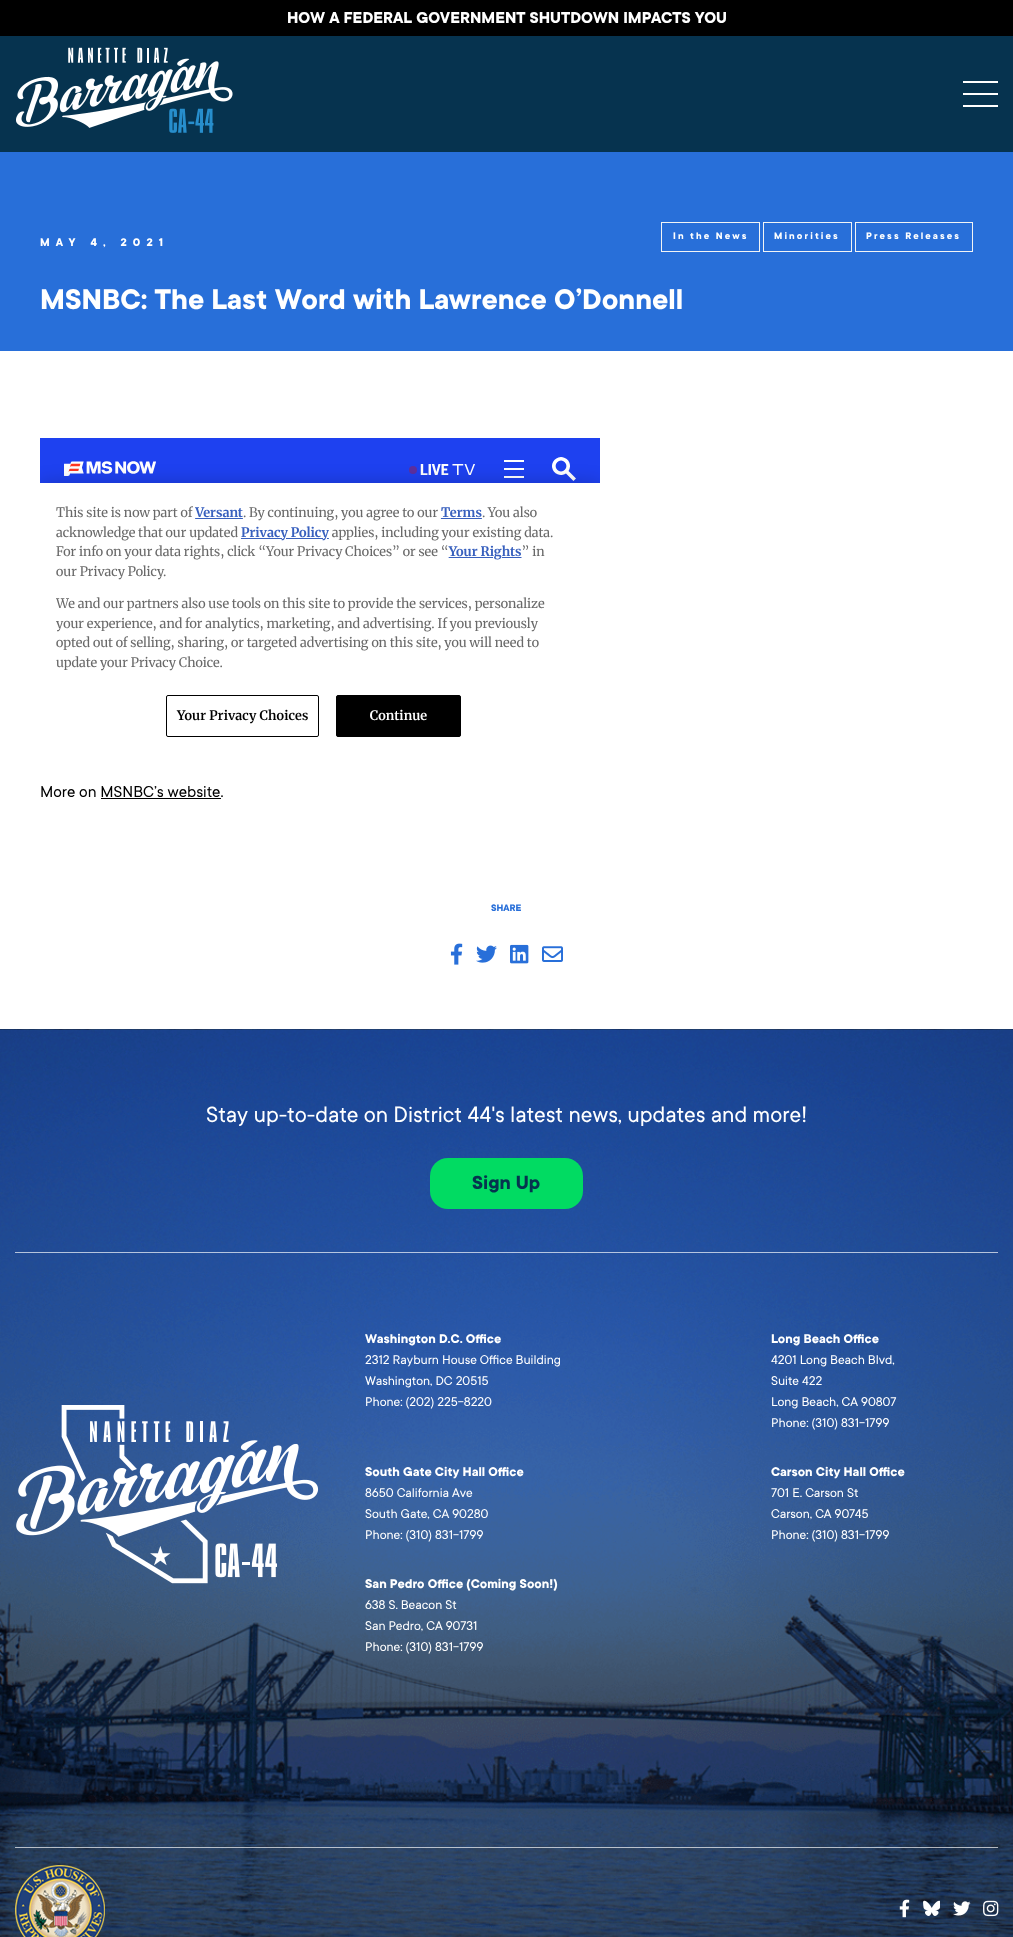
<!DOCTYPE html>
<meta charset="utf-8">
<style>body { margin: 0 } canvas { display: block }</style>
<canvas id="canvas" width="1013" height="1937"></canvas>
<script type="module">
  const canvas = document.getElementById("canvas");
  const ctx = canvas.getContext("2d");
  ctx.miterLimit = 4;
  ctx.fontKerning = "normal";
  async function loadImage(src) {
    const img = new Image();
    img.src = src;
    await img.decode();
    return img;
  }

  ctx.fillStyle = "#ffffff";
  ctx.fillRect(0, 0, 1013, 1937);
  ctx.fillStyle = "#000000";
  ctx.fillRect(0, 0, 1013, 36);
  ctx.font = "bold 17.5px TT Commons";
  ctx.fillStyle = "#ffffff";
  ctx.fillText("HOW A FEDERAL GOVERNMENT SHUTDOWN IMPACTS YOU", 287, 23);
  ctx.fillStyle = "#06334f";
  ctx.fillRect(0, 36, 1013, 116);
  ctx.drawImage(await loadImage("img1.png"), 16, 47, 217, 86);
  ctx.fillStyle = "#ffffff";
  ctx.fillRect(963, 81, 35, 2);
  ctx.fillRect(963, 93, 35, 2);
  ctx.fillRect(963, 105, 35, 2);
  ctx.fillStyle = "#286fd9";
  ctx.fillRect(0, 152, 1013, 199);
  ctx.strokeStyle = "#f2f4f5";
  ctx.strokeRect(661.5, 222.5, 98, 29);
  ctx.letterSpacing = "2.1px";
  ctx.font = "bold 10.5px TT Commons";
  ctx.fillStyle = "#ffffff";
  ctx.fillText("In the News", 673, 239);
  ctx.strokeRect(763.5, 222.5, 88, 29);
  ctx.fillText("Minorities", 774, 239);
  ctx.strokeRect(855.5, 222.5, 117, 29);
  ctx.fillText("Press Releases", 866, 239);
  ctx.letterSpacing = "6.1px";
  ctx.font = "bold 12.25px TT Commons";
  ctx.fillText("MAY 4, 2021", 40, 246);
  ctx.letterSpacing = "0px";
  ctx.font = "bold 31.5px TT Commons";
  ctx.fillText("MSNBC: The Last Word with Lawrence O’Donnell", 40, 309);
  ctx.drawImage(await loadImage("img2.png"), 40, 438, 560, 299);
  ctx.font = "17.5px TT Commons";
  ctx.fillStyle = "#000000";
  ctx.fillText("More on MSNBC’s website.", 40, 797);
  ctx.fillRect(101, 798, 120, 1);
  ctx.font = "bold 10.5px TT Commons";
  ctx.fillStyle = "#286fd9";
  ctx.fillText("SHARE", 491, 911);
  ctx.drawImage(await loadImage("img3.png"), 450, 943, 13, 22);
  ctx.drawImage(await loadImage("img4.png"), 476, 945, 21, 18);
  ctx.drawImage(await loadImage("img5.png"), 510, 944, 19, 20);
  ctx.drawImage(await loadImage("img6.png"), 542, 946, 21, 16);
  ctx.drawImage(await loadImage("img7.png"), 0, 1029, 1013, 908);
  ctx.font = "24.5px TT Commons";
  ctx.fillStyle = "#ffffff";
  ctx.fillText("Stay up-to-date on District 44's latest news, updates and more!", 206, 1122);
  ctx.fillStyle = "#01db62";
  ctx.beginPath();
  ctx.roundRect(430, 1158, 153, 51, 18);
  ctx.fill();
  ctx.font = "bold 21px TT Commons";
  ctx.fillStyle = "#06334f";
  ctx.fillText("Sign Up", 472, 1189);
  ctx.fillStyle = "rgba(255, 255, 255, 0.67)";
  ctx.fillRect(15, 1252, 983, 1);
  ctx.fillRect(15, 1847, 983, 1);
  ctx.drawImage(await loadImage("img8.png"), 16, 1405, 303, 179);
  ctx.font = "bold 14px TT Commons";
  ctx.fillStyle = "#ffffff";
  ctx.fillText("Washington D.C. Office", 365, 1343);
  ctx.font = "14px TT Commons";
  ctx.fillText("2312 Rayburn House Office Building", 365, 1364);
  ctx.fillText("Washington, DC 20515", 365, 1385);
  ctx.fillText("Phone: (202) 225-8220", 365, 1406);
  ctx.font = "bold 14px TT Commons";
  ctx.fillText("Long Beach Office", 771, 1343);
  ctx.font = "14px TT Commons";
  ctx.fillText("4201 Long Beach Blvd,", 771, 1364);
  ctx.fillText("Suite 422", 771, 1385);
  ctx.fillText("Long Beach, CA 90807", 771, 1406);
  ctx.fillText("Phone: (310) 831-1799", 771, 1427);
  ctx.font = "bold 14px TT Commons";
  ctx.fillText("South Gate City Hall Office", 365, 1476);
  ctx.font = "14px TT Commons";
  ctx.fillText("8650 California Ave", 365, 1497);
  ctx.fillText("South Gate, CA 90280", 365, 1518);
  ctx.fillText("Phone: (310) 831-1799", 365, 1539);
  ctx.font = "bold 14px TT Commons";
  ctx.fillText("Carson City Hall Office", 771, 1476);
  ctx.font = "14px TT Commons";
  ctx.fillText("701 E. Carson St", 771, 1497);
  ctx.fillText("Carson, CA 90745", 771, 1518);
  ctx.fillText("Phone: (310) 831-1799", 771, 1539);
  ctx.font = "bold 14px TT Commons";
  ctx.fillText("San Pedro Office (Coming Soon!)", 365, 1588);
  ctx.font = "14px TT Commons";
  ctx.fillText("638 S. Beacon St", 365, 1609);
  ctx.fillText("San Pedro, CA 90731", 365, 1630);
  ctx.fillText("Phone: (310) 831-1799", 365, 1651);
  ctx.drawImage(await loadImage("img9.png"), 15, 1865, 90, 72);
  ctx.drawImage(await loadImage("img10.png"), 899, 1899, 11, 19);
  ctx.drawImage(await loadImage("img11.png"), 923, 1900, 17, 16);
  ctx.drawImage(await loadImage("img12.png"), 953, 1901, 18, 15);
  ctx.drawImage(await loadImage("img13.png"), 983, 1900, 16, 17);
</script>
